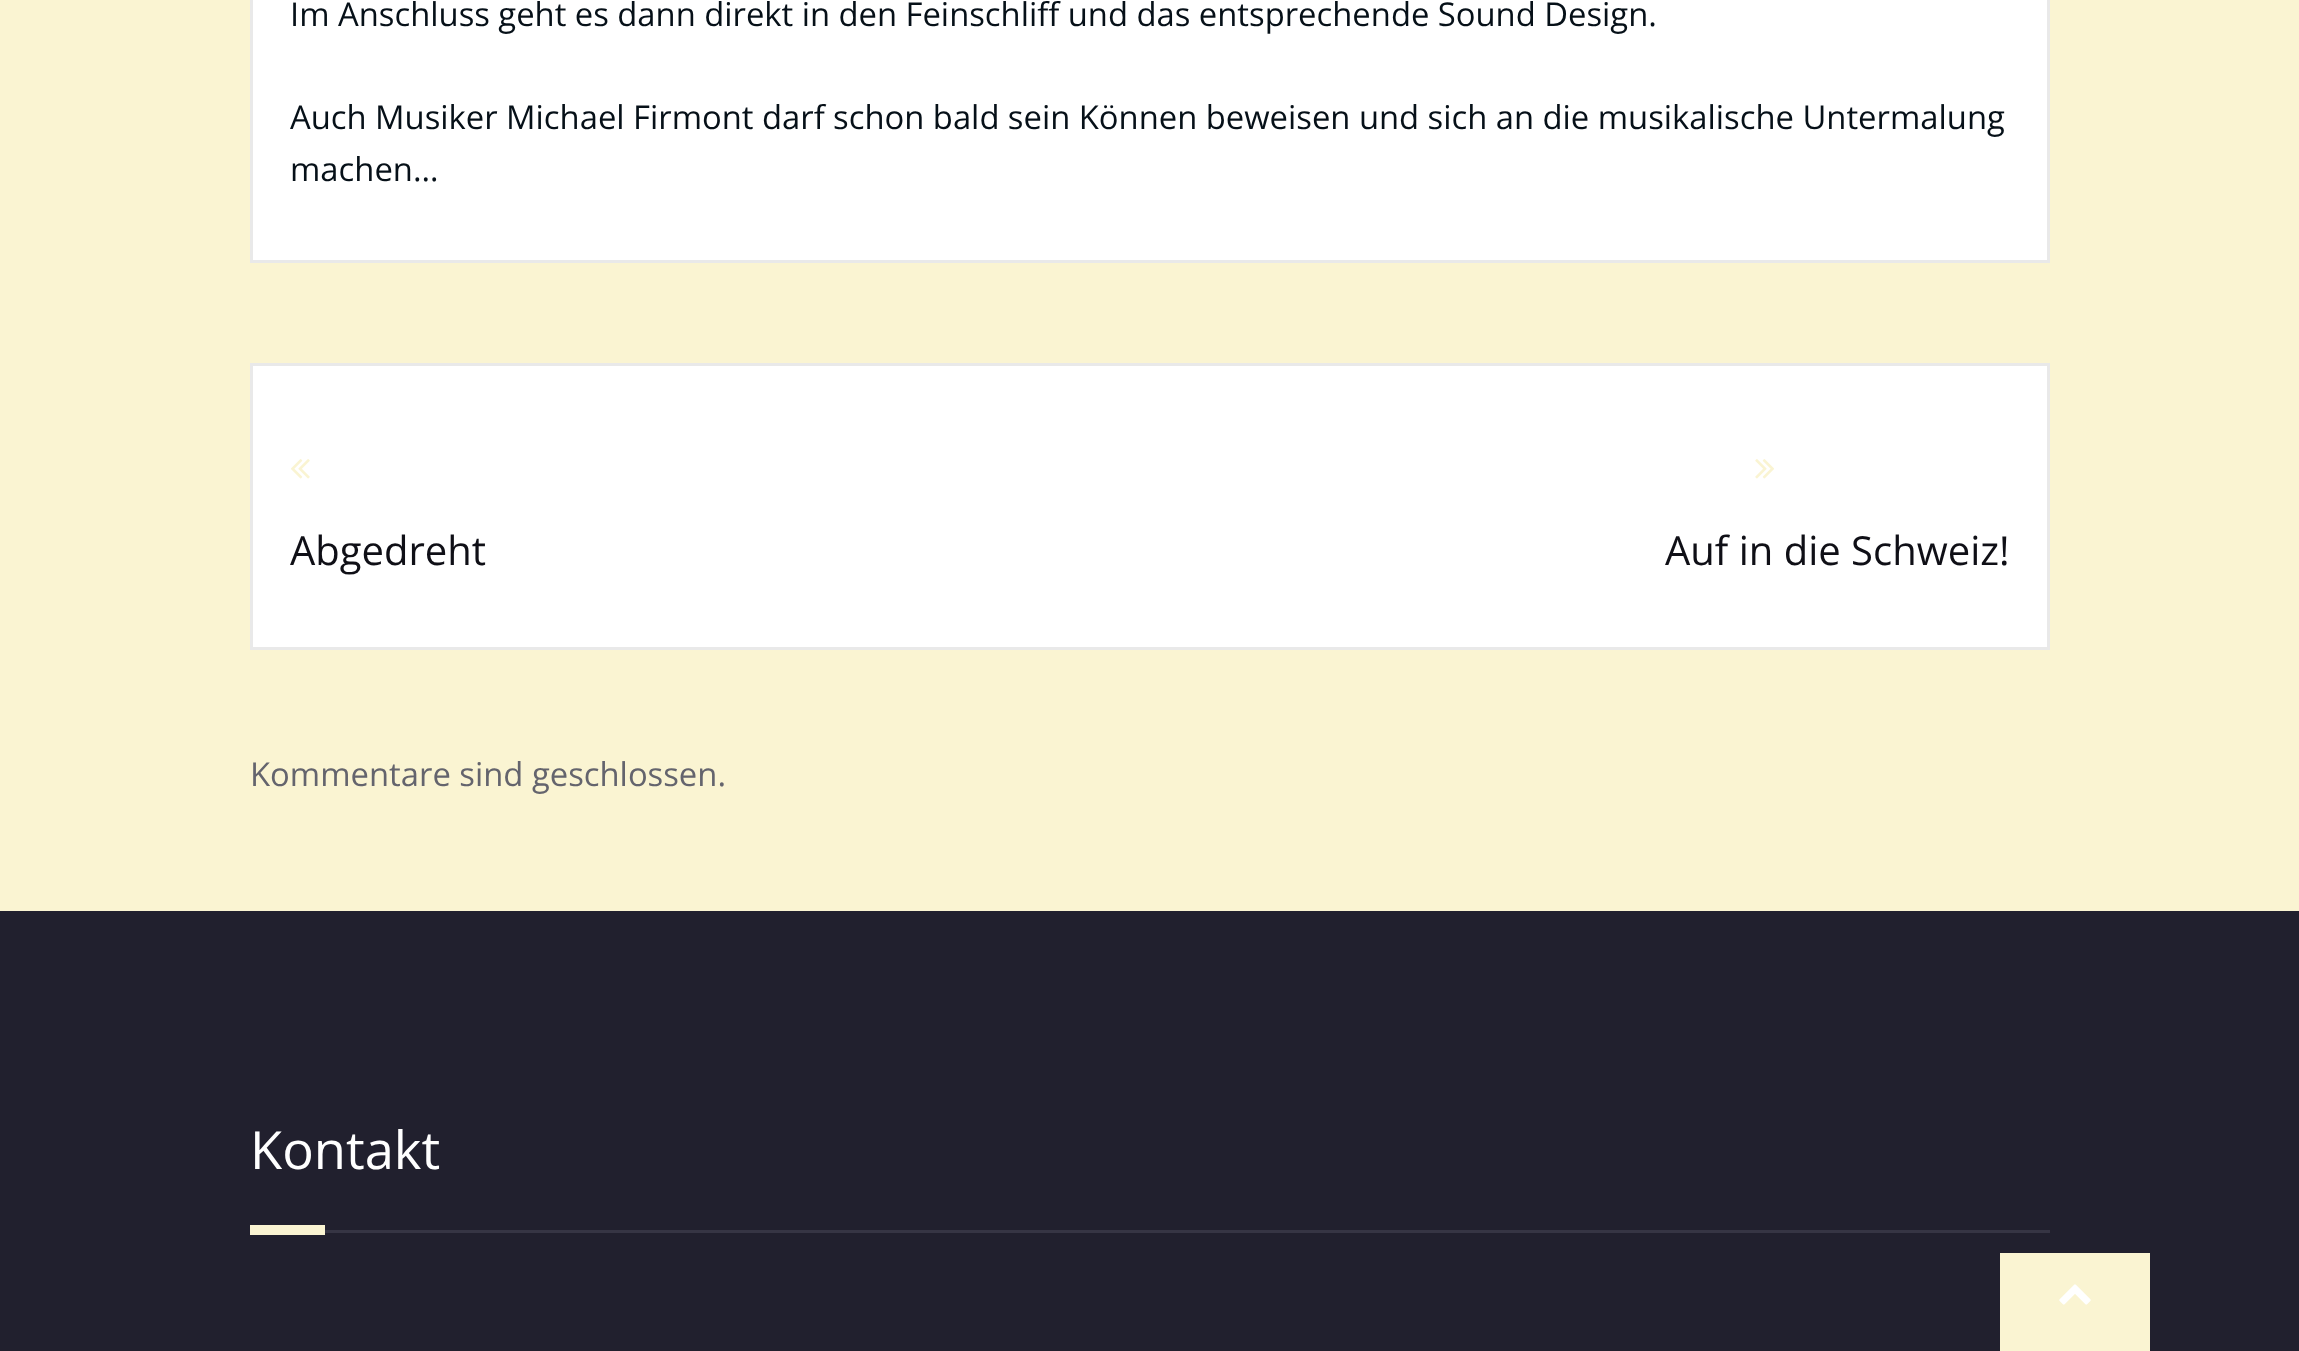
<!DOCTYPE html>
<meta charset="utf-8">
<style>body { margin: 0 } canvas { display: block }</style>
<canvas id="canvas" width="2299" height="1351"></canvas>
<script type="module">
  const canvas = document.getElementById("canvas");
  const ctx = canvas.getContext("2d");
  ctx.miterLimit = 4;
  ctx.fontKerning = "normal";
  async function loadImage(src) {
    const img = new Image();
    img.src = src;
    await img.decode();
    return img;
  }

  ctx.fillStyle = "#faf4d2";
  ctx.fillRect(0, 0, 2299, 1351);
  ctx.fillStyle = "#ffffff";
  ctx.beginPath();
  ctx.rect(251.5, -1.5, 1797, 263);
  ctx.fill();
  ctx.strokeStyle = "#e9e9e9";
  ctx.lineWidth = 3;
  ctx.stroke();
  ctx.wordSpacing = "-0.1px";
  ctx.font = "32.8px Open Sans";
  ctx.fillStyle = "#061018";
  ctx.fillText("Im Anschluss geht es dann direkt in den Feinschliff und das entsprechende Sound Design.", 290, 26);
  ctx.fillText("Auch Musiker Michael Firmont darf schon bald sein Können beweisen und sich an die musikalische Untermalung", 290, 129);
  ctx.wordSpacing = "0px";
  ctx.fillText("machen…", 290, 181);
  ctx.fillStyle = "#ffffff";
  ctx.beginPath();
  ctx.rect(251.5, 364.5, 1797, 284);
  ctx.fill();
  ctx.stroke();
  ctx.drawImage(await loadImage("img1.png"), 291, 459, 19, 20);
  ctx.font = "40px Open Sans";
  ctx.fillStyle = "#0f0f16";
  ctx.fillText("Abgedreht", 290, 565);
  ctx.drawImage(await loadImage("img2.png"), 1755, 459, 19, 20);
  ctx.fillText("Auf in die Schweiz!", 1665, 565);
  ctx.font = "32.8px Open Sans";
  ctx.fillStyle = "#64646d";
  ctx.fillText("Kommentare sind geschlossen.", 250, 786);
  ctx.fillStyle = "#21202e";
  ctx.fillRect(0, 911, 2299, 440);
  ctx.fillStyle = "#363544";
  ctx.fillRect(325, 1230, 1725, 3);
  ctx.font = "52.5px Open Sans";
  ctx.fillStyle = "#ffffff";
  ctx.fillText("Kontakt", 250, 1169);
  ctx.fillStyle = "#faf4d2";
  ctx.fillRect(250, 1225, 75, 10);
  ctx.fillRect(2000, 1253, 150, 98);
  ctx.drawImage(await loadImage("img3.png"), 2059, 1284, 32, 21);
</script>
